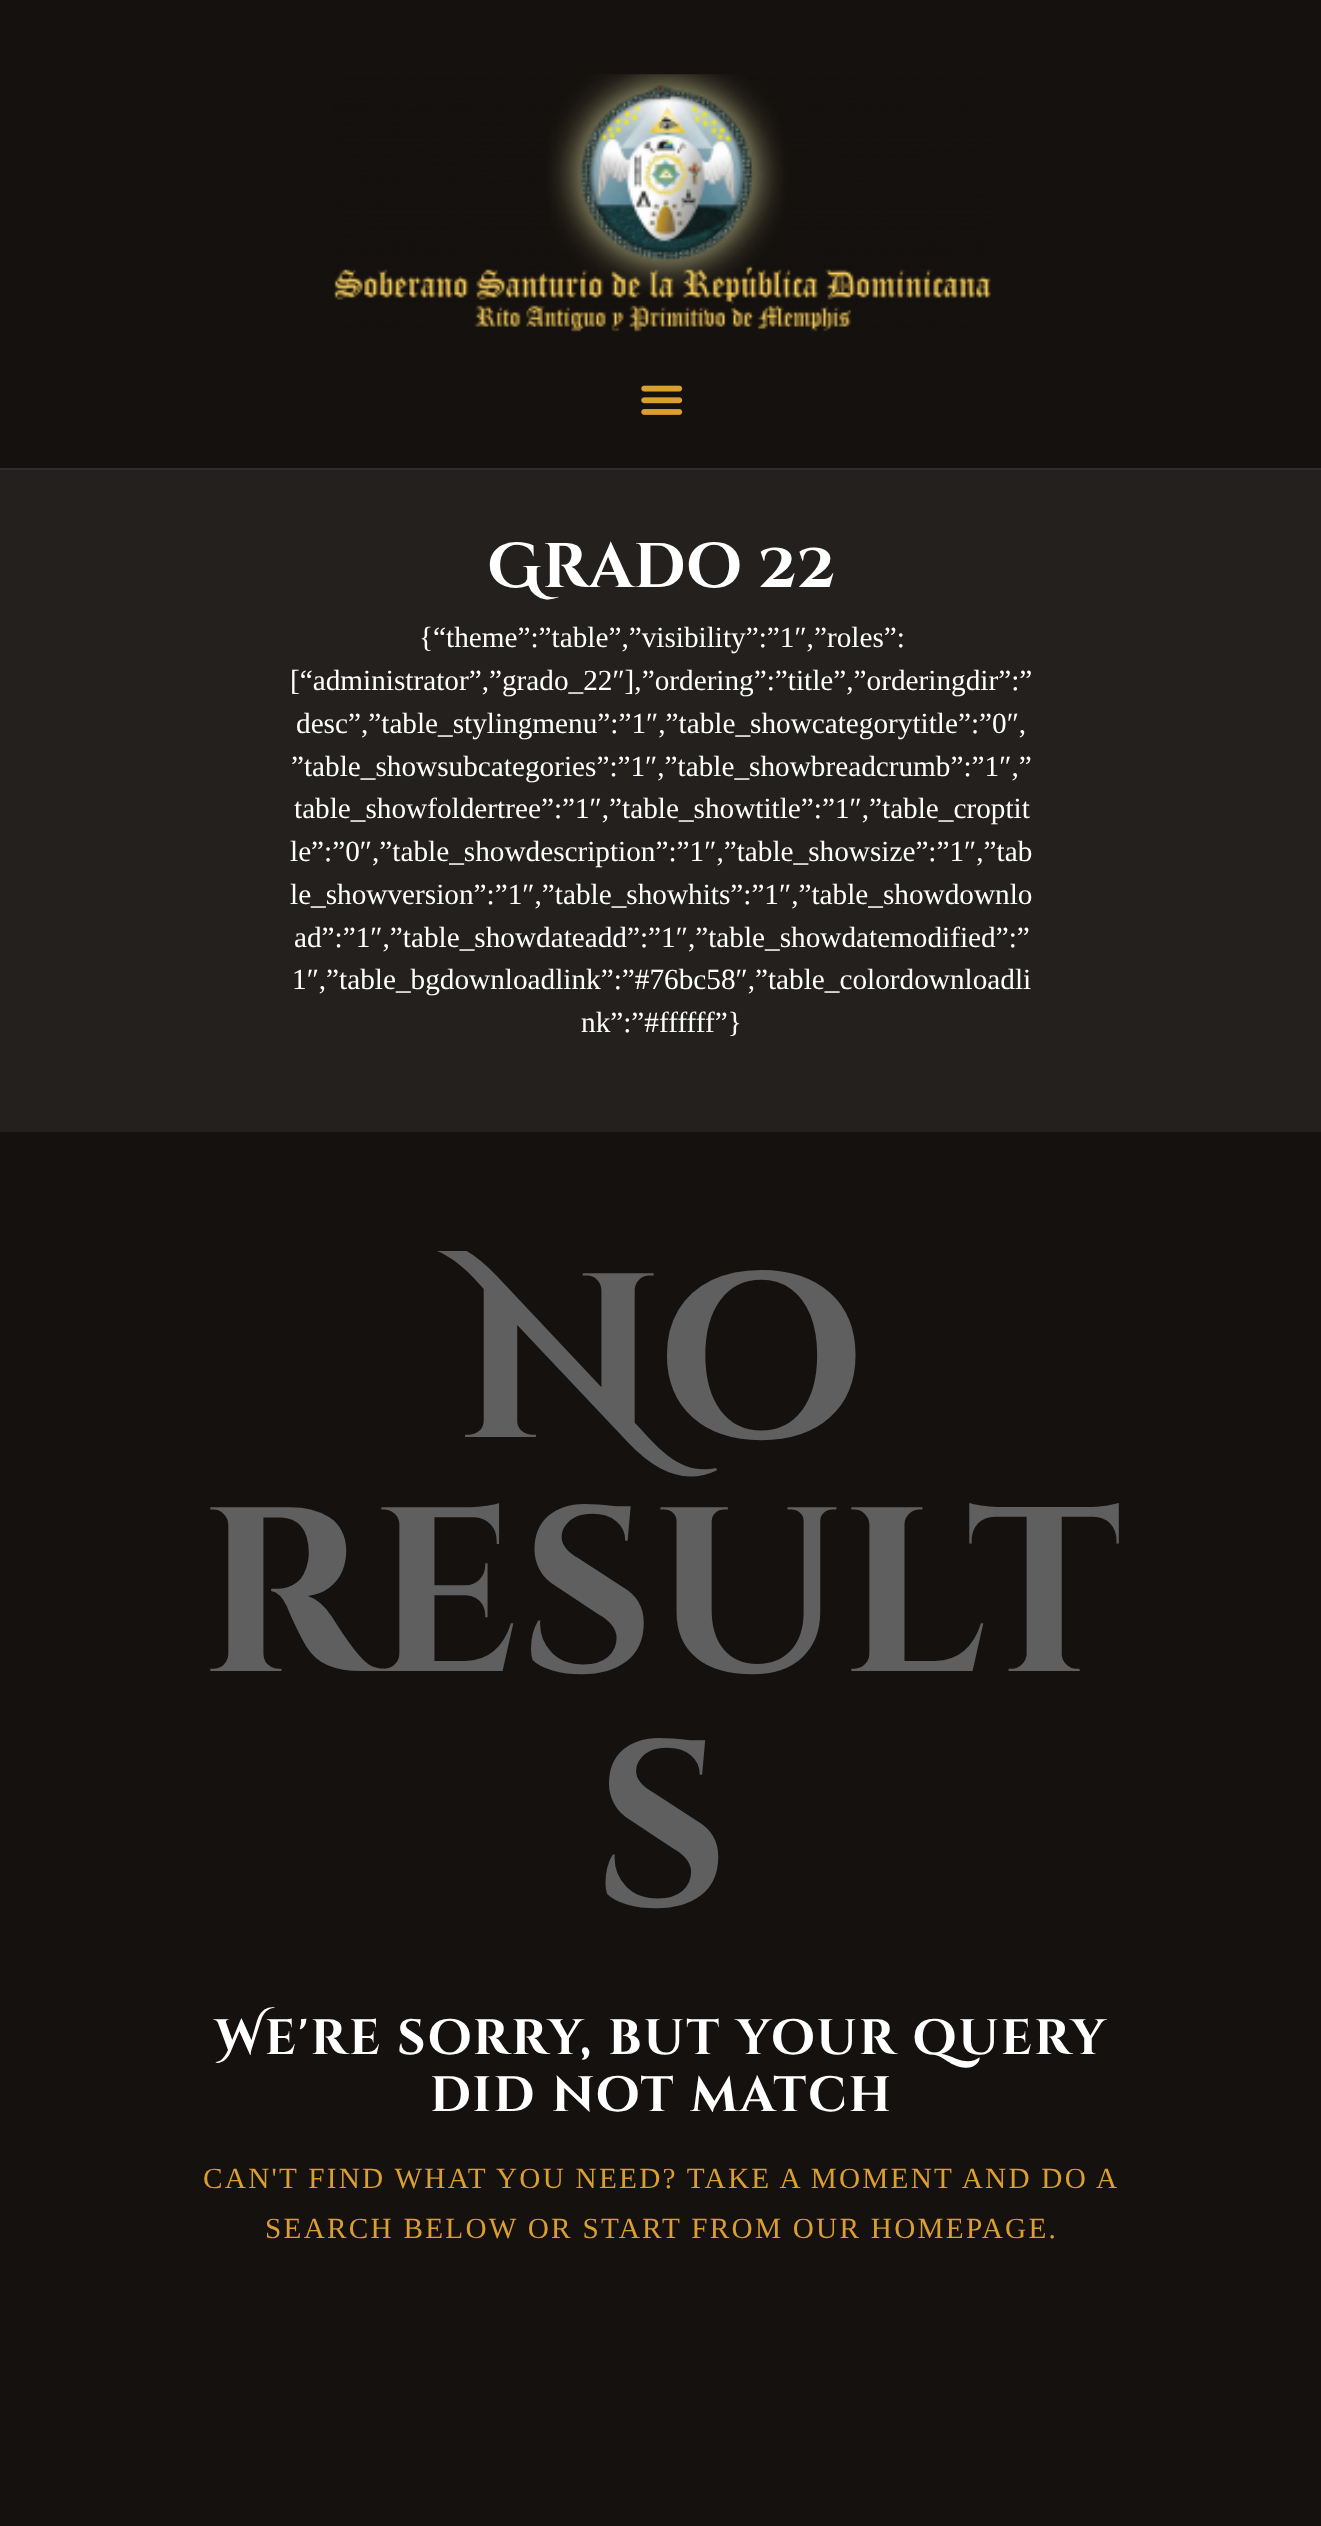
<!DOCTYPE html>
<meta charset="utf-8">
<style>body { margin: 0 } canvas { display: block }</style>
<canvas id="canvas" width="1321" height="2526"></canvas>
<script type="module">
  const canvas = document.getElementById("canvas");
  const ctx = canvas.getContext("2d");
  ctx.miterLimit = 4;
  ctx.fontKerning = "normal";
  async function loadImage(src) {
    const img = new Image();
    img.src = src;
    await img.decode();
    return img;
  }

  ctx.fillStyle = "#15110e";
  ctx.fillRect(0, 0, 1321, 2526);
  ctx.fillStyle = "#2e2c33";
  ctx.fillRect(0, 468, 1321, 2);
  ctx.drawImage(await loadImage("img1.png"), 333, 74, 659, 258);
  ctx.drawImage(await loadImage("img2.png"), 641, 385, 42, 30);
  ctx.fillStyle = "#23201d";
  ctx.fillRect(0, 470, 1321, 662);
  ctx.font = "bold 63px Cinzel Decorative";
  ctx.fillStyle = "#ffffff";
  ctx.fillText("Grado 22", 488, 587);
  ctx.font = "29.25px Liberation Serif";
  ctx.fillText("{“theme”:”table”,”visibility”:”1″,”roles”:", 419, 647);
  ctx.fillText("[“administrator”,”grado_22″],”ordering”:”title”,”orderingdir”:”", 290, 690);
  ctx.fillText("desc”,”table_stylingmenu”:”1″,”table_showcategorytitle”:”0″,", 296, 733);
  ctx.fillText("”table_showsubcategories”:”1″,”table_showbreadcrumb”:”1″,”", 291, 776);
  ctx.fillText("table_showfoldertree”:”1″,”table_showtitle”:”1″,”table_croptit", 294, 818);
  ctx.fillText("le”:”0″,”table_showdescription”:”1″,”table_showsize”:”1″,”tab", 290, 861);
  ctx.fillText("le_showversion”:”1″,”table_showhits”:”1″,”table_showdownlo", 290, 904);
  ctx.fillText("ad”:”1″,”table_showdateadd”:”1″,”table_showdatemodified”:”", 294, 947);
  ctx.fillText("1″,”table_bgdownloadlink”:”#76bc58″,”table_colordownloadli", 292, 989);
  ctx.fillText("nk”:”#ffffff”}", 581, 1032);
  ctx.save();
  ctx.beginPath();
  ctx.rect(167, 1251, 990, 1150);
  ctx.clip();
  ctx.font = "bold 234px Cinzel Decorative";
  ctx.fillStyle = "#5f5f5f";
  ctx.fillText("No", 458, 1437);
  ctx.restore();
  ctx.font = "bold 234px Cinzel Decorative";
  ctx.fillStyle = "#5f5f5f";
  ctx.fillText("result", 200, 1671);
  ctx.fillText("s", 594, 1905);
  ctx.letterSpacing = "2.25px";
  ctx.font = "bold 49.5px Cinzel Decorative";
  ctx.fillStyle = "#ffffff";
  ctx.fillText("We're sorry, but your query", 215, 2054);
  ctx.fillText("did not match", 430, 2111);
  ctx.font = "29.25px Liberation Serif";
  ctx.fillStyle = "#db9e30";
  ctx.fillText("CAN'T FIND WHAT YOU NEED? TAKE A MOMENT AND DO A", 203, 2188);
  ctx.fillText("SEARCH BELOW OR START FROM OUR HOMEPAGE.", 265, 2238);
</script>
